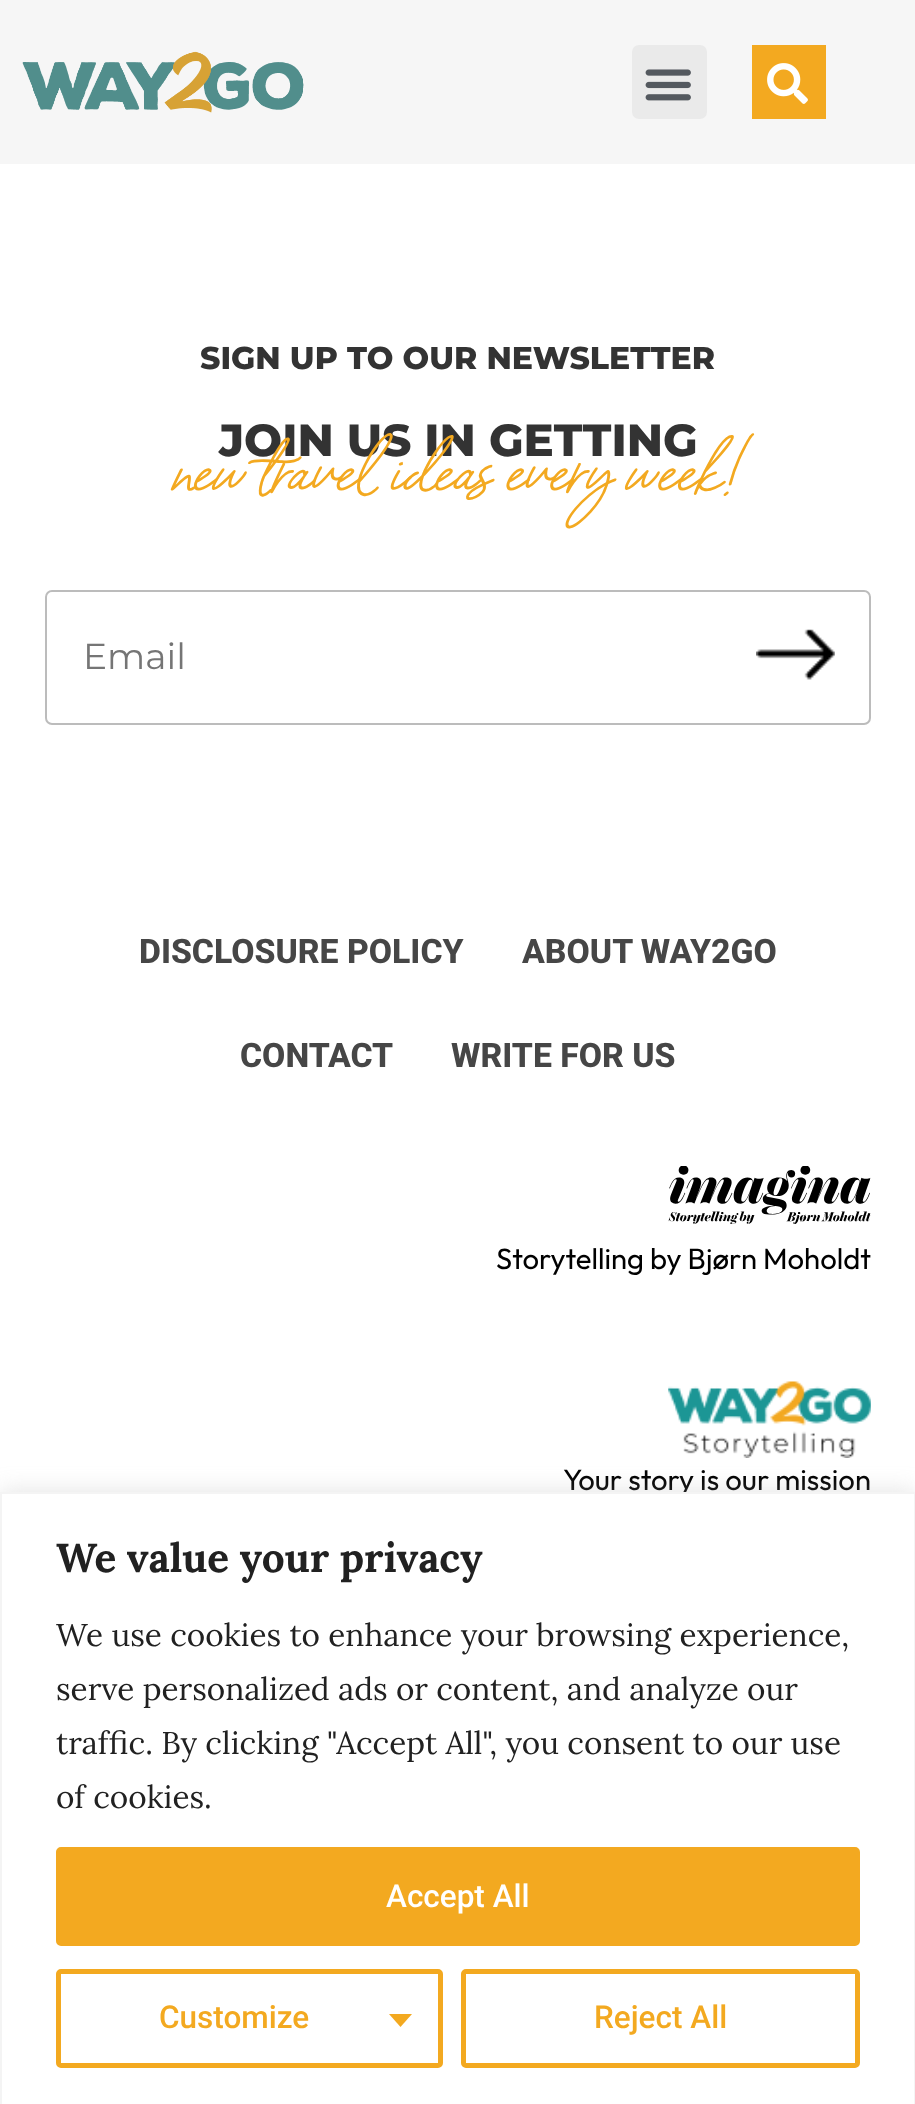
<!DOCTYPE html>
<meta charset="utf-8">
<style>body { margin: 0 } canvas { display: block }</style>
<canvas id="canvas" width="915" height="2104"></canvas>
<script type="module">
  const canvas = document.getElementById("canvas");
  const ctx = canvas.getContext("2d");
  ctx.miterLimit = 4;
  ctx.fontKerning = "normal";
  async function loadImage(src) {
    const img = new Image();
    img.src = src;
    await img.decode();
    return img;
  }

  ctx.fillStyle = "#ffffff";
  ctx.fillRect(0, 0, 915, 2104);
  ctx.fillStyle = "#f6f6f6";
  ctx.fillRect(0, 0, 915, 164);
  ctx.drawImage(await loadImage("img1.png"), 22, 51, 282, 62);
  ctx.fillStyle = "#eaeaea";
  ctx.beginPath();
  ctx.roundRect(632, 45, 75, 74, 7);
  ctx.fill();
  ctx.drawImage(await loadImage("img2.png"), 645, 69, 46, 32);
  ctx.fillStyle = "#f3a920";
  ctx.fillRect(752, 45, 74, 74);
  ctx.drawImage(await loadImage("img3.png"), 767, 63, 41, 41);
  ctx.font = "800 31.5px Montserrat";
  ctx.fillStyle = "#333333";
  ctx.fillText("SIGN UP TO OUR NEWSLETTER", 200, 369);
  ctx.font = "800 45px Montserrat";
  ctx.fillText("JOIN US IN GETTING", 219, 456);
  ctx.font = "italic 60.75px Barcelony";
  ctx.fillStyle = "#f3a920";
  ctx.fillText("new travel ideas every week!", 172, 488);
  ctx.beginPath();
  ctx.roundRect(46, 591, 824, 133, 6);
  ctx.strokeStyle = "#bcbcbc";
  ctx.lineWidth = 2;
  ctx.stroke();
  ctx.font = "36px Montserrat";
  ctx.fillStyle = "#757575";
  ctx.fillText("Email", 83, 669);
  ctx.drawImage(await loadImage("img4.png"), 756, 629, 79, 51);
  ctx.font = "800 33.75px Roboto";
  ctx.fillStyle = "#464646";
  ctx.fillText("DISCLOSURE POLICY", 139, 963);
  ctx.fillText("ABOUT WAY2GO", 522, 963);
  ctx.fillText("CONTACT", 240, 1067);
  ctx.fillText("WRITE FOR US", 451, 1067);
  ctx.drawImage(await loadImage("img5.png"), 668, 1166, 203, 58);
  ctx.font = "29.25px Outfit";
  ctx.fillStyle = "#000000";
  ctx.fillText("Storytelling by Bjørn Moholdt", 496, 1269);
  ctx.drawImage(await loadImage("img6.png"), 668, 1381, 203, 77);
  ctx.fillText("Your story is our mission", 563, 1490);
  ctx.fillStyle = "rgba(172, 171, 171, 0.3)";
  ctx.filter = "blur(11px)";
  ctx.beginPath();
  ctx.rect(0, 1490, 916, 614);
  ctx.fill();
  ctx.filter = "none";
  ctx.fillStyle = "#ffffff";
  ctx.beginPath();
  ctx.rect(1, 1493, 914, 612);
  ctx.fill();
  ctx.strokeStyle = "#f4f4f4";
  ctx.stroke();
  ctx.font = "bold 40.5px Lora";
  ctx.fillStyle = "#212121";
  ctx.fillText("We value your privacy", 56, 1572);
  ctx.font = "31.5px Lora";
  ctx.fillText("We use cookies to enhance your browsing experience,", 56, 1646);
  ctx.fillText("serve personalized ads or content, and analyze our", 56, 1700);
  ctx.fillText("traffic. By clicking \"Accept All\", you consent to our use", 56, 1754);
  ctx.fillText("of cookies.", 56, 1808);
  ctx.fillStyle = "#f3a920";
  ctx.beginPath();
  ctx.roundRect(58.5, 1849.5, 799, 94, 2.5);
  ctx.fill();
  ctx.strokeStyle = "#f3a920";
  ctx.lineWidth = 5;
  ctx.stroke();
  ctx.font = "500 31.5px Roboto";
  ctx.fillStyle = "#ffffff";
  ctx.fillText("Accept All", 386, 1907);
  ctx.beginPath();
  ctx.roundRect(58.5, 1971.5, 382, 94, 2.5);
  ctx.stroke();
  ctx.fillStyle = "#f3a920";
  ctx.fillText("Customize", 159, 2028);
  ctx.beginPath();
  ctx.moveTo(389, 2014);
  ctx.lineTo(412, 2014);
  ctx.lineTo(400.5, 2027);
  ctx.closePath();
  ctx.fill();
  ctx.beginPath();
  ctx.roundRect(463.5, 1971.5, 394, 94, 2.5);
  ctx.stroke();
  ctx.fillText("Reject All", 594, 2028);
</script>
